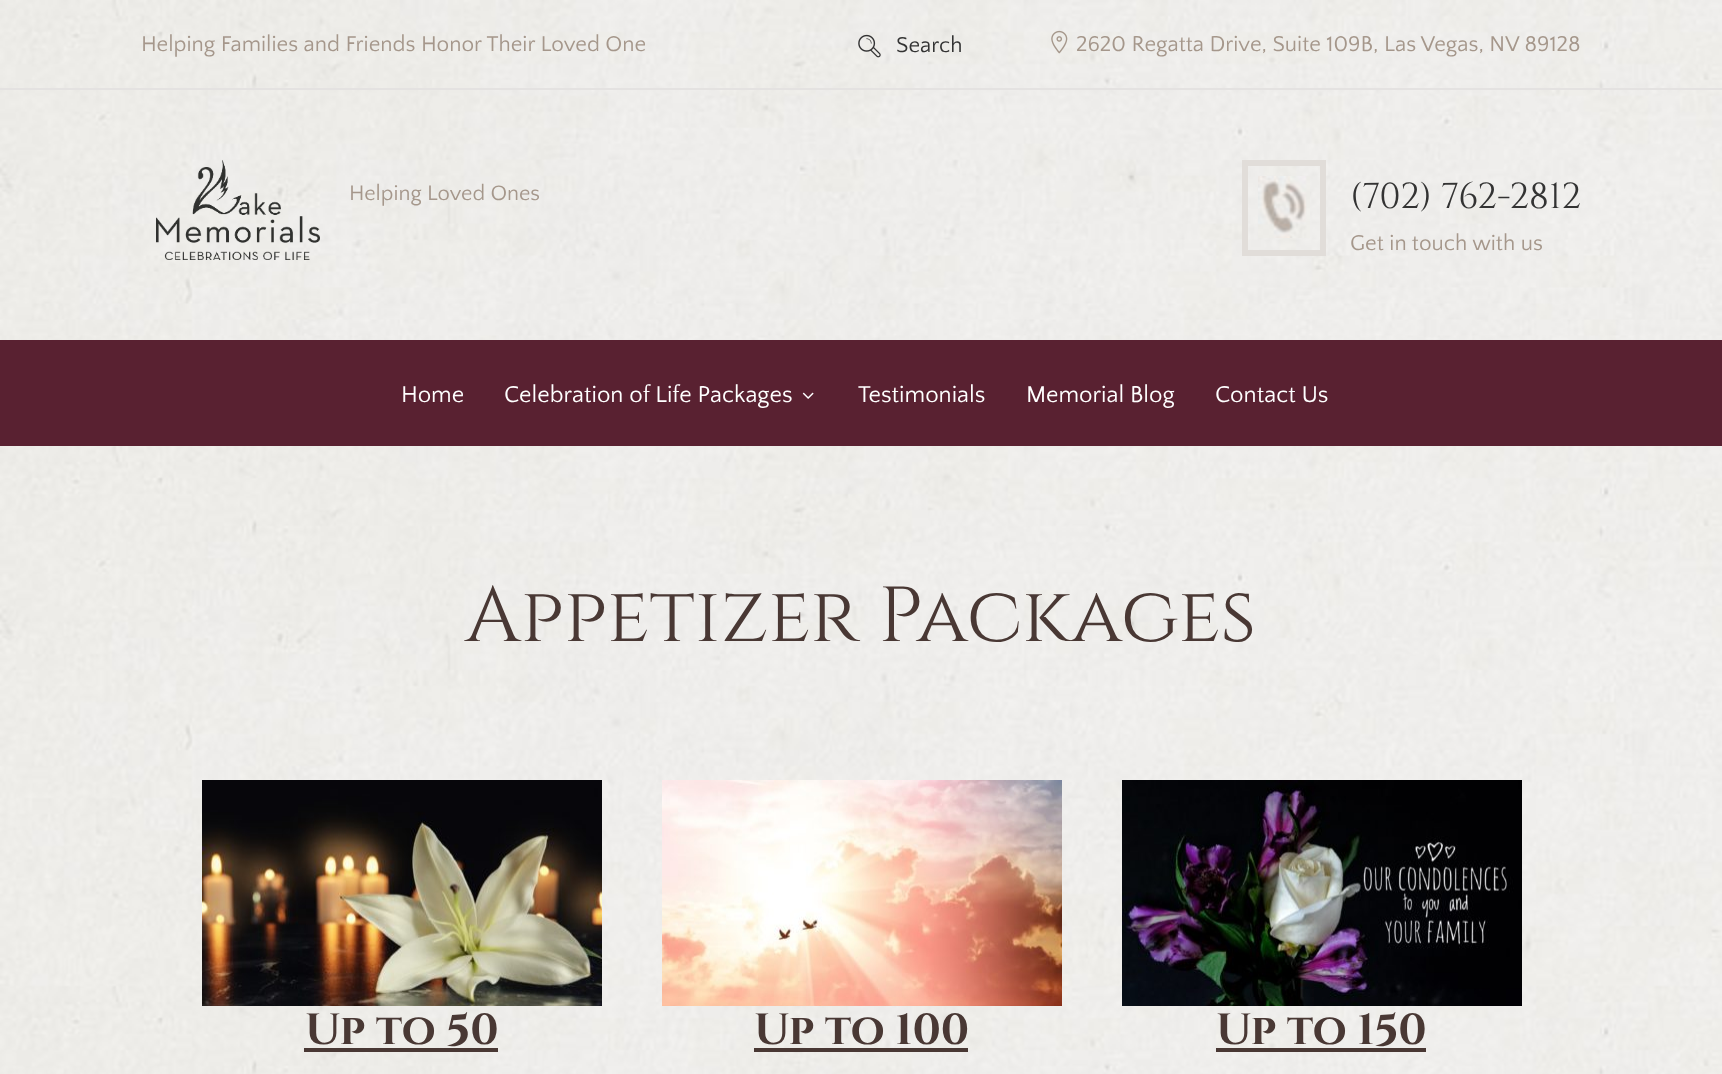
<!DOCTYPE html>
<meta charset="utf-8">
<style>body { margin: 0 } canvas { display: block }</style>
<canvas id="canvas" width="1722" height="1074"></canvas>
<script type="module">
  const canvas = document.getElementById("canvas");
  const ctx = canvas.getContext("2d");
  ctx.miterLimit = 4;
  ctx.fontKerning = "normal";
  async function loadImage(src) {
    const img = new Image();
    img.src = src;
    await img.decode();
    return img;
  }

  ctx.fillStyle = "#ffffff";
  ctx.fillRect(0, 0, 1722, 1074);
  ctx.drawImage(await loadImage("img1.png"), 0, 0, 1722, 340);
  ctx.fillStyle = "#e4e2e1";
  ctx.fillRect(0, 88, 1722, 2);
  ctx.font = "22.5px Quattrocento Sans";
  ctx.fillStyle = "#a5978b";
  ctx.fillText("Helping Families and Friends Honor Their Loved One", 141, 51);
  ctx.drawImage(await loadImage("img2.png"), 858, 34, 23, 24);
  ctx.fillStyle = "#333333";
  ctx.fillText("Search", 896, 52);
  ctx.drawImage(await loadImage("img3.png"), 1051, 30, 17, 24);
  ctx.fillStyle = "#a5978b";
  ctx.fillText("2620 Regatta Drive, Suite 109B, Las Vegas, NV 89128", 1076, 51);
  ctx.drawImage(await loadImage("img4.png"), 156, 160, 164, 100);
  ctx.font = "22px Quattrocento Sans";
  ctx.fillText("Helping Loved Ones", 349, 200);
  ctx.strokeStyle = "#e1ddd9";
  ctx.lineWidth = 6;
  ctx.strokeRect(1245, 163, 78, 90);
  ctx.drawImage(await loadImage("img5.png"), 1258, 176, 52, 62);
  ctx.font = "36px Cinzel";
  ctx.fillStyle = "#333333";
  ctx.fillText("(702) 762-2812", 1350, 208);
  ctx.font = "22.5px Quattrocento Sans";
  ctx.fillStyle = "#a5978b";
  ctx.fillText("Get in touch with us", 1350, 250);
  ctx.fillStyle = "#592131";
  ctx.fillRect(0, 340, 1722, 106);
  ctx.font = "24px Quattrocento Sans";
  ctx.fillStyle = "#ffffff";
  ctx.fillText("Home", 401, 402);
  ctx.fillText("Celebration of Life Packages", 504, 402);
  ctx.drawImage(await loadImage("img6.png"), 802, 392, 12, 7);
  ctx.fillText("Testimonials", 858, 402);
  ctx.fillText("Memorial Blog", 1026, 402);
  ctx.fillText("Contact Us", 1215, 402);
  ctx.drawImage(await loadImage("img7.png"), 0, 446, 1722, 628);
  ctx.font = "78px Cinzel";
  ctx.fillStyle = "#493834";
  ctx.fillText("Appetizer Packages", 465, 641);
  ctx.drawImage(await loadImage("img8.png"), 202, 780, 400, 226);
  ctx.font = "bold 43.5px Cinzel";
  ctx.fillText("Up to 50", 305, 1044);
  ctx.fillRect(304, 1048, 194, 4);
  ctx.drawImage(await loadImage("img9.png"), 662, 780, 400, 226);
  ctx.fillText("Up to 100", 754, 1044);
  ctx.fillRect(754, 1048, 214, 4);
  ctx.drawImage(await loadImage("img10.png"), 1122, 780, 400, 226);
  ctx.fillText("Up to 150", 1216, 1044);
  ctx.fillRect(1216, 1048, 210, 4);
</script>
